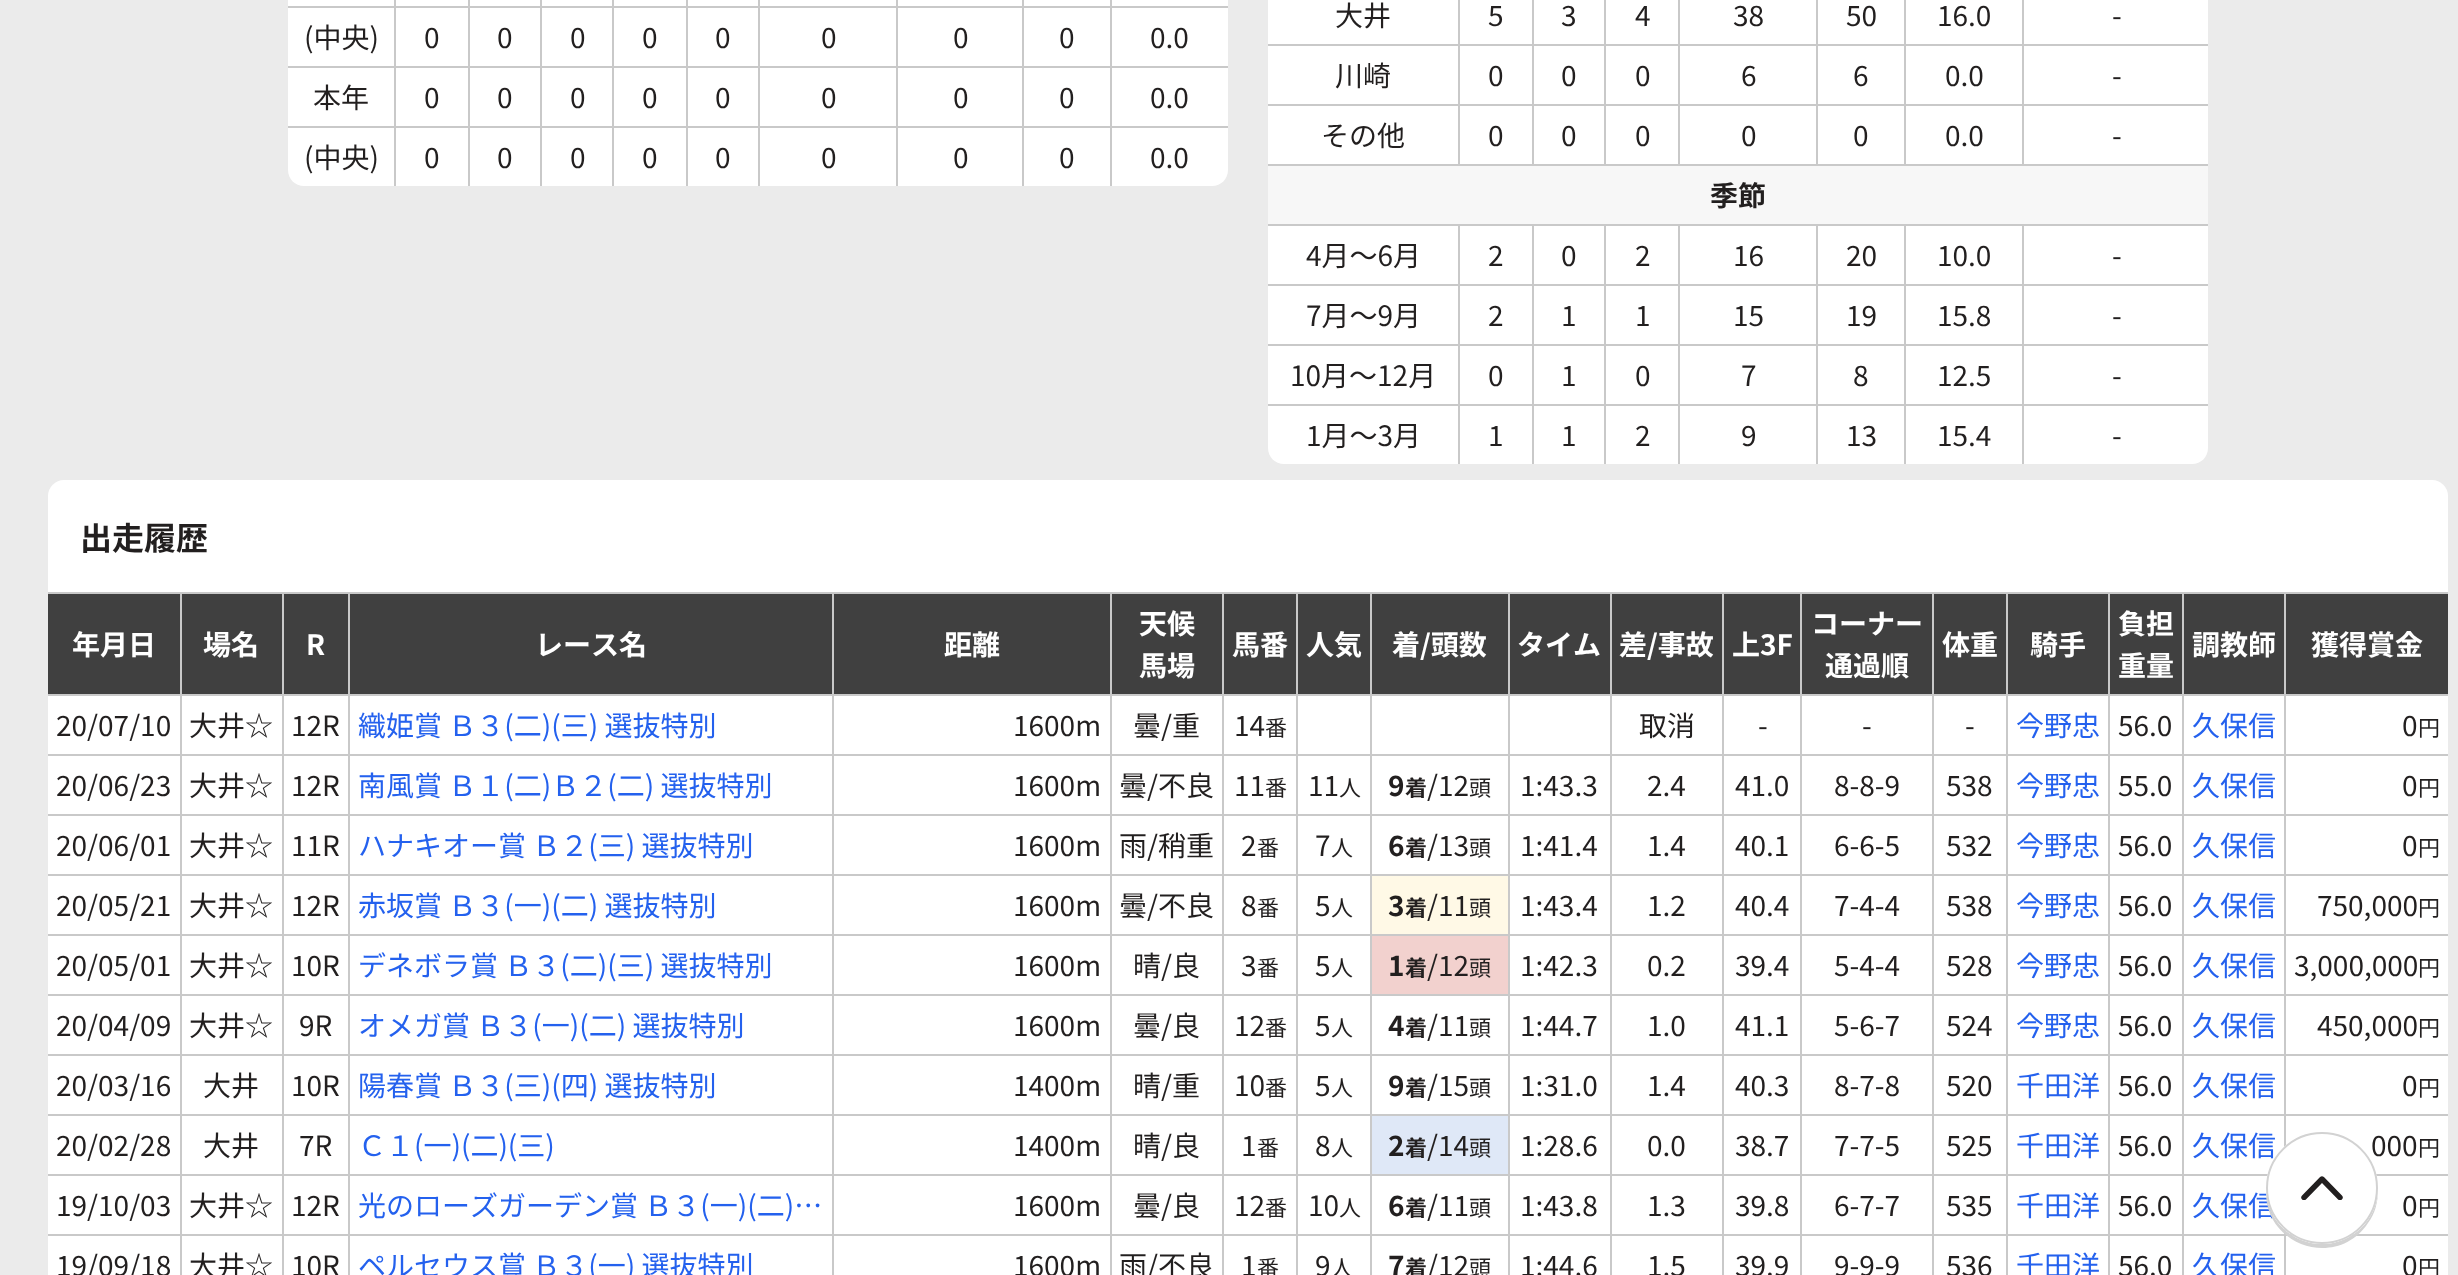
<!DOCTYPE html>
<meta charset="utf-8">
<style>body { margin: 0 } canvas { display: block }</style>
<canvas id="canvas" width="2458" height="1275"></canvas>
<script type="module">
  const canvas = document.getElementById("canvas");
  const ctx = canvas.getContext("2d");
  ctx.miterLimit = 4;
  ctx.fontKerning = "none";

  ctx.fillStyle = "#ebebeb";
  ctx.fillRect(0, 0, 2458, 1275);
  ctx.fillStyle = "#ffffff";
  ctx.beginPath();
  ctx.moveTo(288, -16);
  ctx.lineTo(1228, -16);
  ctx.lineTo(1228, 170);
  ctx.bezierCurveTo(1228, 179, 1221, 186, 1212, 186);
  ctx.lineTo(304, 186);
  ctx.bezierCurveTo(295, 186, 288, 179, 288, 170);
  ctx.closePath();
  ctx.fill();
  ctx.fillStyle = "#c9c9c9";
  ctx.fillRect(1110, 6, 118, 2);
  ctx.fillRect(1110, 66, 118, 2);
  ctx.fillRect(1110, 126, 118, 2);
  ctx.fillRect(1110, 126, 2, 60);
  ctx.fillRect(1022, 126, 90, 2);
  ctx.fillRect(1110, 66, 2, 62);
  ctx.fillRect(1022, 66, 90, 2);
  ctx.fillRect(1110, 6, 2, 62);
  ctx.fillRect(1022, 6, 90, 2);
  ctx.fillRect(1022, 126, 2, 60);
  ctx.fillRect(896, 126, 128, 2);
  ctx.fillRect(1022, 66, 2, 62);
  ctx.fillRect(896, 66, 128, 2);
  ctx.fillRect(1022, 6, 2, 62);
  ctx.fillRect(896, 6, 128, 2);
  ctx.fillRect(896, 126, 2, 60);
  ctx.fillRect(758, 126, 140, 2);
  ctx.fillRect(896, 66, 2, 62);
  ctx.fillRect(758, 66, 140, 2);
  ctx.fillRect(896, 6, 2, 62);
  ctx.fillRect(758, 6, 140, 2);
  ctx.fillRect(758, 126, 2, 60);
  ctx.fillRect(686, 126, 74, 2);
  ctx.fillRect(758, 66, 2, 62);
  ctx.fillRect(686, 66, 74, 2);
  ctx.fillRect(758, 6, 2, 62);
  ctx.fillRect(686, 6, 74, 2);
  ctx.fillRect(686, 126, 2, 60);
  ctx.fillRect(612, 126, 76, 2);
  ctx.fillRect(686, 66, 2, 62);
  ctx.fillRect(612, 66, 76, 2);
  ctx.fillRect(686, 6, 2, 62);
  ctx.fillRect(612, 6, 76, 2);
  ctx.fillRect(612, 126, 2, 60);
  ctx.fillRect(540, 126, 74, 2);
  ctx.fillRect(612, 66, 2, 62);
  ctx.fillRect(540, 66, 74, 2);
  ctx.fillRect(612, 6, 2, 62);
  ctx.fillRect(540, 6, 74, 2);
  ctx.fillRect(540, 126, 2, 60);
  ctx.fillRect(468, 126, 74, 2);
  ctx.fillRect(540, 66, 2, 62);
  ctx.fillRect(468, 66, 74, 2);
  ctx.fillRect(540, 6, 2, 62);
  ctx.fillRect(468, 6, 74, 2);
  ctx.fillRect(468, 126, 2, 60);
  ctx.fillRect(394, 126, 76, 2);
  ctx.fillRect(468, 66, 2, 62);
  ctx.fillRect(394, 66, 76, 2);
  ctx.fillRect(468, 6, 2, 62);
  ctx.fillRect(394, 6, 76, 2);
  ctx.fillRect(394, 126, 2, 60);
  ctx.fillRect(288, 126, 108, 2);
  ctx.fillRect(394, 66, 2, 62);
  ctx.fillRect(288, 66, 108, 2);
  ctx.fillRect(394, 6, 2, 62);
  ctx.fillRect(288, 6, 108, 2);
  ctx.fillRect(394, 0, 2, 8);
  ctx.fillRect(468, 0, 2, 8);
  ctx.fillRect(540, 0, 2, 8);
  ctx.fillRect(612, 0, 2, 8);
  ctx.fillRect(686, 0, 2, 8);
  ctx.fillRect(758, 0, 2, 8);
  ctx.fillRect(896, 0, 2, 8);
  ctx.fillRect(1022, 0, 2, 8);
  ctx.fillRect(1110, 0, 2, 8);
  ctx.font = "28px Noto Sans JP";
  ctx.fillStyle = "#221f1f";
  ctx.fillText("(中央)", 304, 48);
  ctx.fillText("0", 424, 48);
  ctx.fillText("0", 497, 48);
  ctx.fillText("0", 570, 48);
  ctx.fillText("0", 642, 48);
  ctx.fillText("0", 715, 48);
  ctx.fillText("0", 821, 48);
  ctx.fillText("0", 953, 48);
  ctx.fillText("0", 1059, 48);
  ctx.fillText("0.0", 1150, 48);
  ctx.fillText("本年", 313, 108);
  ctx.fillText("0", 424, 108);
  ctx.fillText("0", 497, 108);
  ctx.fillText("0", 570, 108);
  ctx.fillText("0", 642, 108);
  ctx.fillText("0", 715, 108);
  ctx.fillText("0", 821, 108);
  ctx.fillText("0", 953, 108);
  ctx.fillText("0", 1059, 108);
  ctx.fillText("0.0", 1150, 108);
  ctx.fillText("(中央)", 304, 168);
  ctx.fillText("0", 424, 168);
  ctx.fillText("0", 497, 168);
  ctx.fillText("0", 570, 168);
  ctx.fillText("0", 642, 168);
  ctx.fillText("0", 715, 168);
  ctx.fillText("0", 821, 168);
  ctx.fillText("0", 953, 168);
  ctx.fillText("0", 1059, 168);
  ctx.fillText("0.0", 1150, 168);
  ctx.fillStyle = "#ffffff";
  ctx.beginPath();
  ctx.moveTo(1268, -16);
  ctx.lineTo(2208, -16);
  ctx.lineTo(2208, 448);
  ctx.bezierCurveTo(2208, 457, 2201, 464, 2192, 464);
  ctx.lineTo(1284, 464);
  ctx.bezierCurveTo(1275, 464, 1268, 457, 1268, 448);
  ctx.closePath();
  ctx.fill();
  ctx.fillStyle = "#221f1f";
  ctx.fillText("大井", 1335, 26);
  ctx.fillStyle = "#c9c9c9";
  ctx.fillRect(2022, 44, 186, 2);
  ctx.fillRect(2022, 104, 186, 2);
  ctx.fillRect(1268, 164, 940, 2);
  ctx.fillRect(2022, 104, 2, 62);
  ctx.fillRect(1904, 104, 120, 2);
  ctx.fillRect(2022, 44, 2, 62);
  ctx.fillRect(1904, 44, 120, 2);
  ctx.fillRect(1904, 104, 2, 62);
  ctx.fillRect(1816, 104, 90, 2);
  ctx.fillRect(1904, 44, 2, 62);
  ctx.fillRect(1816, 44, 90, 2);
  ctx.fillRect(1816, 104, 2, 62);
  ctx.fillRect(1678, 104, 140, 2);
  ctx.fillRect(1816, 44, 2, 62);
  ctx.fillRect(1678, 44, 140, 2);
  ctx.fillRect(1678, 104, 2, 62);
  ctx.fillRect(1604, 104, 76, 2);
  ctx.fillRect(1678, 44, 2, 62);
  ctx.fillRect(1604, 44, 76, 2);
  ctx.fillRect(1604, 104, 2, 62);
  ctx.fillRect(1532, 104, 74, 2);
  ctx.fillRect(1604, 44, 2, 62);
  ctx.fillRect(1532, 44, 74, 2);
  ctx.fillRect(1532, 104, 2, 62);
  ctx.fillRect(1458, 104, 76, 2);
  ctx.fillRect(1532, 44, 2, 62);
  ctx.fillRect(1458, 44, 76, 2);
  ctx.fillRect(1458, 104, 2, 62);
  ctx.fillRect(1268, 104, 192, 2);
  ctx.fillRect(1458, 44, 2, 62);
  ctx.fillRect(1268, 44, 192, 2);
  ctx.fillRect(1458, 0, 2, 46);
  ctx.fillStyle = "#221f1f";
  ctx.fillText("5", 1488, 26);
  ctx.fillStyle = "#c9c9c9";
  ctx.fillRect(1532, 0, 2, 46);
  ctx.fillStyle = "#221f1f";
  ctx.fillText("3", 1561, 26);
  ctx.fillStyle = "#c9c9c9";
  ctx.fillRect(1604, 0, 2, 46);
  ctx.fillStyle = "#221f1f";
  ctx.fillText("4", 1635, 26);
  ctx.fillStyle = "#c9c9c9";
  ctx.fillRect(1678, 0, 2, 46);
  ctx.fillStyle = "#221f1f";
  ctx.fillText("38", 1733, 26);
  ctx.fillStyle = "#c9c9c9";
  ctx.fillRect(1816, 0, 2, 46);
  ctx.fillStyle = "#221f1f";
  ctx.fillText("50", 1846, 26);
  ctx.fillStyle = "#c9c9c9";
  ctx.fillRect(1904, 0, 2, 46);
  ctx.fillStyle = "#221f1f";
  ctx.fillText("16.0", 1937, 26);
  ctx.fillStyle = "#c9c9c9";
  ctx.fillRect(2022, 0, 2, 46);
  ctx.fillStyle = "#221f1f";
  ctx.fillText("-", 2112, 26);
  ctx.fillText("川崎", 1335, 86);
  ctx.fillText("0", 1488, 86);
  ctx.fillText("0", 1561, 86);
  ctx.fillText("0", 1635, 86);
  ctx.fillText("6", 1741, 86);
  ctx.fillText("6", 1853, 86);
  ctx.fillText("0.0", 1945, 86);
  ctx.fillText("-", 2112, 86);
  ctx.fillText("その他", 1321, 146);
  ctx.fillText("0", 1488, 146);
  ctx.fillText("0", 1561, 146);
  ctx.fillText("0", 1635, 146);
  ctx.fillText("0", 1741, 146);
  ctx.fillText("0", 1853, 146);
  ctx.fillText("0.0", 1945, 146);
  ctx.fillText("-", 2112, 146);
  ctx.fillStyle = "#f7f7f7";
  ctx.fillRect(1268, 166, 940, 58);
  ctx.font = "bold 28px Noto Sans JP";
  ctx.fillStyle = "#221f1f";
  ctx.fillText("季節", 1710, 206);
  ctx.fillStyle = "#c9c9c9";
  ctx.fillRect(2022, 224, 186, 2);
  ctx.fillRect(2022, 284, 186, 2);
  ctx.fillRect(2022, 344, 186, 2);
  ctx.fillRect(2022, 404, 186, 2);
  ctx.fillRect(2022, 404, 2, 60);
  ctx.fillRect(1904, 404, 120, 2);
  ctx.fillRect(2022, 344, 2, 62);
  ctx.fillRect(1904, 344, 120, 2);
  ctx.fillRect(2022, 284, 2, 62);
  ctx.fillRect(1904, 284, 120, 2);
  ctx.fillRect(2022, 224, 2, 62);
  ctx.fillRect(1904, 224, 120, 2);
  ctx.fillRect(1904, 404, 2, 60);
  ctx.fillRect(1816, 404, 90, 2);
  ctx.fillRect(1904, 344, 2, 62);
  ctx.fillRect(1816, 344, 90, 2);
  ctx.fillRect(1904, 284, 2, 62);
  ctx.fillRect(1816, 284, 90, 2);
  ctx.fillRect(1904, 224, 2, 62);
  ctx.fillRect(1816, 224, 90, 2);
  ctx.fillRect(1816, 404, 2, 60);
  ctx.fillRect(1678, 404, 140, 2);
  ctx.fillRect(1816, 344, 2, 62);
  ctx.fillRect(1678, 344, 140, 2);
  ctx.fillRect(1816, 284, 2, 62);
  ctx.fillRect(1678, 284, 140, 2);
  ctx.fillRect(1816, 224, 2, 62);
  ctx.fillRect(1678, 224, 140, 2);
  ctx.fillRect(1678, 404, 2, 60);
  ctx.fillRect(1604, 404, 76, 2);
  ctx.fillRect(1678, 344, 2, 62);
  ctx.fillRect(1604, 344, 76, 2);
  ctx.fillRect(1678, 284, 2, 62);
  ctx.fillRect(1604, 284, 76, 2);
  ctx.fillRect(1678, 224, 2, 62);
  ctx.fillRect(1604, 224, 76, 2);
  ctx.fillRect(1604, 404, 2, 60);
  ctx.fillRect(1532, 404, 74, 2);
  ctx.fillRect(1604, 344, 2, 62);
  ctx.fillRect(1532, 344, 74, 2);
  ctx.fillRect(1604, 284, 2, 62);
  ctx.fillRect(1532, 284, 74, 2);
  ctx.fillRect(1604, 224, 2, 62);
  ctx.fillRect(1532, 224, 74, 2);
  ctx.fillRect(1532, 404, 2, 60);
  ctx.fillRect(1458, 404, 76, 2);
  ctx.fillRect(1532, 344, 2, 62);
  ctx.fillRect(1458, 344, 76, 2);
  ctx.fillRect(1532, 284, 2, 62);
  ctx.fillRect(1458, 284, 76, 2);
  ctx.fillRect(1532, 224, 2, 62);
  ctx.fillRect(1458, 224, 76, 2);
  ctx.fillRect(1458, 404, 2, 60);
  ctx.fillRect(1268, 404, 192, 2);
  ctx.fillRect(1458, 344, 2, 62);
  ctx.fillRect(1268, 344, 192, 2);
  ctx.fillRect(1458, 284, 2, 62);
  ctx.fillRect(1268, 284, 192, 2);
  ctx.fillRect(1458, 224, 2, 62);
  ctx.fillRect(1268, 224, 192, 2);
  ctx.font = "28px Noto Sans JP";
  ctx.fillStyle = "#221f1f";
  ctx.fillText("4月～6月", 1306, 266);
  ctx.fillText("2", 1488, 266);
  ctx.fillText("0", 1561, 266);
  ctx.fillText("2", 1635, 266);
  ctx.fillText("16", 1733, 266);
  ctx.fillText("20", 1846, 266);
  ctx.fillText("10.0", 1937, 266);
  ctx.fillText("-", 2112, 266);
  ctx.fillText("7月～9月", 1306, 326);
  ctx.fillText("2", 1488, 326);
  ctx.fillText("1", 1561, 326);
  ctx.fillText("1", 1635, 326);
  ctx.fillText("15", 1733, 326);
  ctx.fillText("19", 1846, 326);
  ctx.fillText("15.8", 1937, 326);
  ctx.fillText("-", 2112, 326);
  ctx.fillText("10月～12月", 1290, 386);
  ctx.fillText("0", 1488, 386);
  ctx.fillText("1", 1561, 386);
  ctx.fillText("0", 1635, 386);
  ctx.fillText("7", 1741, 386);
  ctx.fillText("8", 1853, 386);
  ctx.fillText("12.5", 1937, 386);
  ctx.fillText("-", 2112, 386);
  ctx.fillText("1月～3月", 1306, 446);
  ctx.fillText("1", 1488, 446);
  ctx.fillText("1", 1561, 446);
  ctx.fillText("2", 1635, 446);
  ctx.fillText("9", 1741, 446);
  ctx.fillText("13", 1846, 446);
  ctx.fillText("15.4", 1937, 446);
  ctx.fillText("-", 2112, 446);
  ctx.fillStyle = "#ffffff";
  ctx.beginPath();
  ctx.roundRect(48, 480, 2400, 112, [16, 16, 0, 0]);
  ctx.fill();
  ctx.font = "bold 32px Noto Sans JP";
  ctx.fillStyle = "#221f1f";
  ctx.fillText("出走履歴", 80, 550);
  ctx.fillStyle = "#ffffff";
  ctx.fillRect(48, 696, 2400, 579);
  ctx.fillStyle = "#404040";
  ctx.fillRect(48, 594, 132, 100);
  ctx.fillStyle = "#c9c9c9";
  ctx.fillRect(2284, 592, 164, 2);
  ctx.fillRect(2284, 694, 164, 2);
  ctx.fillRect(2284, 754, 164, 2);
  ctx.fillRect(2284, 814, 164, 2);
  ctx.fillRect(2284, 874, 164, 2);
  ctx.fillRect(2284, 934, 164, 2);
  ctx.fillRect(2284, 994, 164, 2);
  ctx.fillRect(2284, 1054, 164, 2);
  ctx.fillRect(2284, 1114, 164, 2);
  ctx.fillRect(2284, 1114, 2, 33);
  ctx.fillRect(2182, 1114, 104, 2);
  ctx.fillRect(2284, 1054, 2, 62);
  ctx.fillRect(2182, 1054, 104, 2);
  ctx.fillRect(2284, 994, 2, 62);
  ctx.fillRect(2182, 994, 104, 2);
  ctx.fillRect(2284, 934, 2, 62);
  ctx.fillRect(2182, 934, 104, 2);
  ctx.fillRect(2284, 874, 2, 62);
  ctx.fillRect(2182, 874, 104, 2);
  ctx.fillRect(2284, 814, 2, 62);
  ctx.fillRect(2182, 814, 104, 2);
  ctx.fillRect(2284, 754, 2, 62);
  ctx.fillRect(2182, 754, 104, 2);
  ctx.fillRect(2284, 694, 2, 62);
  ctx.fillRect(2182, 694, 104, 2);
  ctx.fillRect(2284, 592, 2, 104);
  ctx.fillRect(2182, 592, 104, 2);
  ctx.fillRect(2182, 1174, 86, 2);
  ctx.fillRect(2284, 1234, 164, 2);
  ctx.fillRect(2284, 1234, 2, 41);
  ctx.fillRect(2182, 1234, 104, 2);
  ctx.fillRect(2182, 1234, 2, 41);
  ctx.fillRect(2108, 1234, 76, 2);
  ctx.fillRect(2182, 1174, 2, 62);
  ctx.fillRect(2108, 1174, 76, 2);
  ctx.fillRect(2182, 1114, 2, 62);
  ctx.fillRect(2108, 1114, 76, 2);
  ctx.fillRect(2182, 1054, 2, 62);
  ctx.fillRect(2108, 1054, 76, 2);
  ctx.fillRect(2182, 994, 2, 62);
  ctx.fillRect(2108, 994, 76, 2);
  ctx.fillRect(2182, 934, 2, 62);
  ctx.fillRect(2108, 934, 76, 2);
  ctx.fillRect(2182, 874, 2, 62);
  ctx.fillRect(2108, 874, 76, 2);
  ctx.fillRect(2182, 814, 2, 62);
  ctx.fillRect(2108, 814, 76, 2);
  ctx.fillRect(2182, 754, 2, 62);
  ctx.fillRect(2108, 754, 76, 2);
  ctx.fillRect(2182, 694, 2, 62);
  ctx.fillRect(2108, 694, 76, 2);
  ctx.fillRect(2182, 592, 2, 104);
  ctx.fillRect(2108, 592, 76, 2);
  ctx.fillRect(2108, 1234, 2, 41);
  ctx.fillRect(2006, 1234, 104, 2);
  ctx.fillRect(2108, 1174, 2, 62);
  ctx.fillRect(2006, 1174, 104, 2);
  ctx.fillRect(2108, 1114, 2, 62);
  ctx.fillRect(2006, 1114, 104, 2);
  ctx.fillRect(2108, 1054, 2, 62);
  ctx.fillRect(2006, 1054, 104, 2);
  ctx.fillRect(2108, 994, 2, 62);
  ctx.fillRect(2006, 994, 104, 2);
  ctx.fillRect(2108, 934, 2, 62);
  ctx.fillRect(2006, 934, 104, 2);
  ctx.fillRect(2108, 874, 2, 62);
  ctx.fillRect(2006, 874, 104, 2);
  ctx.fillRect(2108, 814, 2, 62);
  ctx.fillRect(2006, 814, 104, 2);
  ctx.fillRect(2108, 754, 2, 62);
  ctx.fillRect(2006, 754, 104, 2);
  ctx.fillRect(2108, 694, 2, 62);
  ctx.fillRect(2006, 694, 104, 2);
  ctx.fillRect(2108, 592, 2, 104);
  ctx.fillRect(2006, 592, 104, 2);
  ctx.fillRect(2006, 1234, 2, 41);
  ctx.fillRect(1932, 1234, 76, 2);
  ctx.fillRect(2006, 1174, 2, 62);
  ctx.fillRect(1932, 1174, 76, 2);
  ctx.fillRect(2006, 1114, 2, 62);
  ctx.fillRect(1932, 1114, 76, 2);
  ctx.fillRect(2006, 1054, 2, 62);
  ctx.fillRect(1932, 1054, 76, 2);
  ctx.fillRect(2006, 994, 2, 62);
  ctx.fillRect(1932, 994, 76, 2);
  ctx.fillRect(2006, 934, 2, 62);
  ctx.fillRect(1932, 934, 76, 2);
  ctx.fillRect(2006, 874, 2, 62);
  ctx.fillRect(1932, 874, 76, 2);
  ctx.fillRect(2006, 814, 2, 62);
  ctx.fillRect(1932, 814, 76, 2);
  ctx.fillRect(2006, 754, 2, 62);
  ctx.fillRect(1932, 754, 76, 2);
  ctx.fillRect(2006, 694, 2, 62);
  ctx.fillRect(1932, 694, 76, 2);
  ctx.fillRect(2006, 592, 2, 104);
  ctx.fillRect(1932, 592, 76, 2);
  ctx.fillRect(1932, 1234, 2, 41);
  ctx.fillRect(1800, 1234, 134, 2);
  ctx.fillRect(1932, 1174, 2, 62);
  ctx.fillRect(1800, 1174, 134, 2);
  ctx.fillRect(1932, 1114, 2, 62);
  ctx.fillRect(1800, 1114, 134, 2);
  ctx.fillRect(1932, 1054, 2, 62);
  ctx.fillRect(1800, 1054, 134, 2);
  ctx.fillRect(1932, 994, 2, 62);
  ctx.fillRect(1800, 994, 134, 2);
  ctx.fillRect(1932, 934, 2, 62);
  ctx.fillRect(1800, 934, 134, 2);
  ctx.fillRect(1932, 874, 2, 62);
  ctx.fillRect(1800, 874, 134, 2);
  ctx.fillRect(1932, 814, 2, 62);
  ctx.fillRect(1800, 814, 134, 2);
  ctx.fillRect(1932, 754, 2, 62);
  ctx.fillRect(1800, 754, 134, 2);
  ctx.fillRect(1932, 694, 2, 62);
  ctx.fillRect(1800, 694, 134, 2);
  ctx.fillRect(1932, 592, 2, 104);
  ctx.fillRect(1800, 592, 134, 2);
  ctx.fillRect(1800, 1234, 2, 41);
  ctx.fillRect(1722, 1234, 80, 2);
  ctx.fillRect(1800, 1174, 2, 62);
  ctx.fillRect(1722, 1174, 80, 2);
  ctx.fillRect(1800, 1114, 2, 62);
  ctx.fillRect(1722, 1114, 80, 2);
  ctx.fillRect(1800, 1054, 2, 62);
  ctx.fillRect(1722, 1054, 80, 2);
  ctx.fillRect(1800, 994, 2, 62);
  ctx.fillRect(1722, 994, 80, 2);
  ctx.fillRect(1800, 934, 2, 62);
  ctx.fillRect(1722, 934, 80, 2);
  ctx.fillRect(1800, 874, 2, 62);
  ctx.fillRect(1722, 874, 80, 2);
  ctx.fillRect(1800, 814, 2, 62);
  ctx.fillRect(1722, 814, 80, 2);
  ctx.fillRect(1800, 754, 2, 62);
  ctx.fillRect(1722, 754, 80, 2);
  ctx.fillRect(1800, 694, 2, 62);
  ctx.fillRect(1722, 694, 80, 2);
  ctx.fillRect(1800, 592, 2, 104);
  ctx.fillRect(1722, 592, 80, 2);
  ctx.fillRect(1722, 1234, 2, 41);
  ctx.fillRect(1610, 1234, 114, 2);
  ctx.fillRect(1722, 1174, 2, 62);
  ctx.fillRect(1610, 1174, 114, 2);
  ctx.fillRect(1722, 1114, 2, 62);
  ctx.fillRect(1610, 1114, 114, 2);
  ctx.fillRect(1722, 1054, 2, 62);
  ctx.fillRect(1610, 1054, 114, 2);
  ctx.fillRect(1722, 994, 2, 62);
  ctx.fillRect(1610, 994, 114, 2);
  ctx.fillRect(1722, 934, 2, 62);
  ctx.fillRect(1610, 934, 114, 2);
  ctx.fillRect(1722, 874, 2, 62);
  ctx.fillRect(1610, 874, 114, 2);
  ctx.fillRect(1722, 814, 2, 62);
  ctx.fillRect(1610, 814, 114, 2);
  ctx.fillRect(1722, 754, 2, 62);
  ctx.fillRect(1610, 754, 114, 2);
  ctx.fillRect(1722, 694, 2, 62);
  ctx.fillRect(1610, 694, 114, 2);
  ctx.fillRect(1722, 592, 2, 104);
  ctx.fillRect(1610, 592, 114, 2);
  ctx.fillRect(1610, 1234, 2, 41);
  ctx.fillRect(1508, 1234, 104, 2);
  ctx.fillRect(1610, 1174, 2, 62);
  ctx.fillRect(1508, 1174, 104, 2);
  ctx.fillRect(1610, 1114, 2, 62);
  ctx.fillRect(1508, 1114, 104, 2);
  ctx.fillRect(1610, 1054, 2, 62);
  ctx.fillRect(1508, 1054, 104, 2);
  ctx.fillRect(1610, 994, 2, 62);
  ctx.fillRect(1508, 994, 104, 2);
  ctx.fillRect(1610, 934, 2, 62);
  ctx.fillRect(1508, 934, 104, 2);
  ctx.fillRect(1610, 874, 2, 62);
  ctx.fillRect(1508, 874, 104, 2);
  ctx.fillRect(1610, 814, 2, 62);
  ctx.fillRect(1508, 814, 104, 2);
  ctx.fillRect(1610, 754, 2, 62);
  ctx.fillRect(1508, 754, 104, 2);
  ctx.fillRect(1610, 694, 2, 62);
  ctx.fillRect(1508, 694, 104, 2);
  ctx.fillRect(1610, 592, 2, 104);
  ctx.fillRect(1508, 592, 104, 2);
  ctx.fillRect(1508, 1234, 2, 41);
  ctx.fillRect(1370, 1234, 140, 2);
  ctx.fillRect(1508, 1174, 2, 62);
  ctx.fillRect(1370, 1174, 140, 2);
  ctx.fillRect(1508, 1114, 2, 62);
  ctx.fillRect(1370, 1114, 140, 2);
  ctx.fillRect(1508, 1054, 2, 62);
  ctx.fillRect(1370, 1054, 140, 2);
  ctx.fillRect(1508, 994, 2, 62);
  ctx.fillRect(1370, 994, 140, 2);
  ctx.fillRect(1508, 934, 2, 62);
  ctx.fillRect(1370, 934, 140, 2);
  ctx.fillRect(1508, 874, 2, 62);
  ctx.fillRect(1370, 874, 140, 2);
  ctx.fillRect(1508, 814, 2, 62);
  ctx.fillRect(1370, 814, 140, 2);
  ctx.fillRect(1508, 754, 2, 62);
  ctx.fillRect(1370, 754, 140, 2);
  ctx.fillRect(1508, 694, 2, 62);
  ctx.fillRect(1370, 694, 140, 2);
  ctx.fillRect(1508, 592, 2, 104);
  ctx.fillRect(1370, 592, 140, 2);
  ctx.fillRect(1370, 1234, 2, 41);
  ctx.fillRect(1296, 1234, 76, 2);
  ctx.fillRect(1370, 1174, 2, 62);
  ctx.fillRect(1296, 1174, 76, 2);
  ctx.fillRect(1370, 1114, 2, 62);
  ctx.fillRect(1296, 1114, 76, 2);
  ctx.fillRect(1370, 1054, 2, 62);
  ctx.fillRect(1296, 1054, 76, 2);
  ctx.fillRect(1370, 994, 2, 62);
  ctx.fillRect(1296, 994, 76, 2);
  ctx.fillRect(1370, 934, 2, 62);
  ctx.fillRect(1296, 934, 76, 2);
  ctx.fillRect(1370, 874, 2, 62);
  ctx.fillRect(1296, 874, 76, 2);
  ctx.fillRect(1370, 814, 2, 62);
  ctx.fillRect(1296, 814, 76, 2);
  ctx.fillRect(1370, 754, 2, 62);
  ctx.fillRect(1296, 754, 76, 2);
  ctx.fillRect(1370, 694, 2, 62);
  ctx.fillRect(1296, 694, 76, 2);
  ctx.fillRect(1370, 592, 2, 104);
  ctx.fillRect(1296, 592, 76, 2);
  ctx.fillRect(1296, 1234, 2, 41);
  ctx.fillRect(1222, 1234, 76, 2);
  ctx.fillRect(1296, 1174, 2, 62);
  ctx.fillRect(1222, 1174, 76, 2);
  ctx.fillRect(1296, 1114, 2, 62);
  ctx.fillRect(1222, 1114, 76, 2);
  ctx.fillRect(1296, 1054, 2, 62);
  ctx.fillRect(1222, 1054, 76, 2);
  ctx.fillRect(1296, 994, 2, 62);
  ctx.fillRect(1222, 994, 76, 2);
  ctx.fillRect(1296, 934, 2, 62);
  ctx.fillRect(1222, 934, 76, 2);
  ctx.fillRect(1296, 874, 2, 62);
  ctx.fillRect(1222, 874, 76, 2);
  ctx.fillRect(1296, 814, 2, 62);
  ctx.fillRect(1222, 814, 76, 2);
  ctx.fillRect(1296, 754, 2, 62);
  ctx.fillRect(1222, 754, 76, 2);
  ctx.fillRect(1296, 694, 2, 62);
  ctx.fillRect(1222, 694, 76, 2);
  ctx.fillRect(1296, 592, 2, 104);
  ctx.fillRect(1222, 592, 76, 2);
  ctx.fillRect(1222, 1234, 2, 41);
  ctx.fillRect(1110, 1234, 114, 2);
  ctx.fillRect(1222, 1174, 2, 62);
  ctx.fillRect(1110, 1174, 114, 2);
  ctx.fillRect(1222, 1114, 2, 62);
  ctx.fillRect(1110, 1114, 114, 2);
  ctx.fillRect(1222, 1054, 2, 62);
  ctx.fillRect(1110, 1054, 114, 2);
  ctx.fillRect(1222, 994, 2, 62);
  ctx.fillRect(1110, 994, 114, 2);
  ctx.fillRect(1222, 934, 2, 62);
  ctx.fillRect(1110, 934, 114, 2);
  ctx.fillRect(1222, 874, 2, 62);
  ctx.fillRect(1110, 874, 114, 2);
  ctx.fillRect(1222, 814, 2, 62);
  ctx.fillRect(1110, 814, 114, 2);
  ctx.fillRect(1222, 754, 2, 62);
  ctx.fillRect(1110, 754, 114, 2);
  ctx.fillRect(1222, 694, 2, 62);
  ctx.fillRect(1110, 694, 114, 2);
  ctx.fillRect(1222, 592, 2, 104);
  ctx.fillRect(1110, 592, 114, 2);
  ctx.fillRect(1110, 1234, 2, 41);
  ctx.fillRect(832, 1234, 280, 2);
  ctx.fillRect(1110, 1174, 2, 62);
  ctx.fillRect(832, 1174, 280, 2);
  ctx.fillRect(1110, 1114, 2, 62);
  ctx.fillRect(832, 1114, 280, 2);
  ctx.fillRect(1110, 1054, 2, 62);
  ctx.fillRect(832, 1054, 280, 2);
  ctx.fillRect(1110, 994, 2, 62);
  ctx.fillRect(832, 994, 280, 2);
  ctx.fillRect(1110, 934, 2, 62);
  ctx.fillRect(832, 934, 280, 2);
  ctx.fillRect(1110, 874, 2, 62);
  ctx.fillRect(832, 874, 280, 2);
  ctx.fillRect(1110, 814, 2, 62);
  ctx.fillRect(832, 814, 280, 2);
  ctx.fillRect(1110, 754, 2, 62);
  ctx.fillRect(832, 754, 280, 2);
  ctx.fillRect(1110, 694, 2, 62);
  ctx.fillRect(832, 694, 280, 2);
  ctx.fillRect(1110, 592, 2, 104);
  ctx.fillRect(832, 592, 280, 2);
  ctx.fillRect(832, 1234, 2, 41);
  ctx.fillRect(348, 1234, 486, 2);
  ctx.fillRect(832, 1174, 2, 62);
  ctx.fillRect(348, 1174, 486, 2);
  ctx.fillRect(832, 1114, 2, 62);
  ctx.fillRect(348, 1114, 486, 2);
  ctx.fillRect(832, 1054, 2, 62);
  ctx.fillRect(348, 1054, 486, 2);
  ctx.fillRect(832, 994, 2, 62);
  ctx.fillRect(348, 994, 486, 2);
  ctx.fillRect(832, 934, 2, 62);
  ctx.fillRect(348, 934, 486, 2);
  ctx.fillRect(832, 874, 2, 62);
  ctx.fillRect(348, 874, 486, 2);
  ctx.fillRect(832, 814, 2, 62);
  ctx.fillRect(348, 814, 486, 2);
  ctx.fillRect(832, 754, 2, 62);
  ctx.fillRect(348, 754, 486, 2);
  ctx.fillRect(832, 694, 2, 62);
  ctx.fillRect(348, 694, 486, 2);
  ctx.fillRect(832, 592, 2, 104);
  ctx.fillRect(348, 592, 486, 2);
  ctx.fillRect(348, 1234, 2, 41);
  ctx.fillRect(282, 1234, 68, 2);
  ctx.fillRect(348, 1174, 2, 62);
  ctx.fillRect(282, 1174, 68, 2);
  ctx.fillRect(348, 1114, 2, 62);
  ctx.fillRect(282, 1114, 68, 2);
  ctx.fillRect(348, 1054, 2, 62);
  ctx.fillRect(282, 1054, 68, 2);
  ctx.fillRect(348, 994, 2, 62);
  ctx.fillRect(282, 994, 68, 2);
  ctx.fillRect(348, 934, 2, 62);
  ctx.fillRect(282, 934, 68, 2);
  ctx.fillRect(348, 874, 2, 62);
  ctx.fillRect(282, 874, 68, 2);
  ctx.fillRect(348, 814, 2, 62);
  ctx.fillRect(282, 814, 68, 2);
  ctx.fillRect(348, 754, 2, 62);
  ctx.fillRect(282, 754, 68, 2);
  ctx.fillRect(348, 694, 2, 62);
  ctx.fillRect(282, 694, 68, 2);
  ctx.fillRect(348, 592, 2, 104);
  ctx.fillRect(282, 592, 68, 2);
  ctx.fillRect(282, 1234, 2, 41);
  ctx.fillRect(180, 1234, 104, 2);
  ctx.fillRect(282, 1174, 2, 62);
  ctx.fillRect(180, 1174, 104, 2);
  ctx.fillRect(282, 1114, 2, 62);
  ctx.fillRect(180, 1114, 104, 2);
  ctx.fillRect(282, 1054, 2, 62);
  ctx.fillRect(180, 1054, 104, 2);
  ctx.fillRect(282, 994, 2, 62);
  ctx.fillRect(180, 994, 104, 2);
  ctx.fillRect(282, 934, 2, 62);
  ctx.fillRect(180, 934, 104, 2);
  ctx.fillRect(282, 874, 2, 62);
  ctx.fillRect(180, 874, 104, 2);
  ctx.fillRect(282, 814, 2, 62);
  ctx.fillRect(180, 814, 104, 2);
  ctx.fillRect(282, 754, 2, 62);
  ctx.fillRect(180, 754, 104, 2);
  ctx.fillRect(282, 694, 2, 62);
  ctx.fillRect(180, 694, 104, 2);
  ctx.fillRect(282, 592, 2, 104);
  ctx.fillRect(180, 592, 104, 2);
  ctx.fillRect(180, 1234, 2, 41);
  ctx.fillRect(48, 1234, 134, 2);
  ctx.fillRect(180, 1174, 2, 62);
  ctx.fillRect(48, 1174, 134, 2);
  ctx.fillRect(180, 1114, 2, 62);
  ctx.fillRect(48, 1114, 134, 2);
  ctx.fillRect(180, 1054, 2, 62);
  ctx.fillRect(48, 1054, 134, 2);
  ctx.fillRect(180, 994, 2, 62);
  ctx.fillRect(48, 994, 134, 2);
  ctx.fillRect(180, 934, 2, 62);
  ctx.fillRect(48, 934, 134, 2);
  ctx.fillRect(180, 874, 2, 62);
  ctx.fillRect(48, 874, 134, 2);
  ctx.fillRect(180, 814, 2, 62);
  ctx.fillRect(48, 814, 134, 2);
  ctx.fillRect(180, 754, 2, 62);
  ctx.fillRect(48, 754, 134, 2);
  ctx.fillRect(180, 694, 2, 62);
  ctx.fillRect(48, 694, 134, 2);
  ctx.fillRect(180, 592, 2, 104);
  ctx.fillRect(48, 592, 134, 2);
  ctx.font = "bold 28px Noto Sans JP";
  ctx.fillStyle = "#ffffff";
  ctx.fillText("年月日", 72, 655);
  ctx.fillStyle = "#404040";
  ctx.fillRect(182, 594, 100, 100);
  ctx.fillStyle = "#ffffff";
  ctx.fillText("場名", 203, 655);
  ctx.fillStyle = "#404040";
  ctx.fillRect(284, 594, 64, 100);
  ctx.fillStyle = "#ffffff";
  ctx.fillText("R", 306, 655);
  ctx.fillStyle = "#404040";
  ctx.fillRect(350, 594, 482, 100);
  ctx.fillStyle = "#ffffff";
  ctx.fillText("レース名", 535, 655);
  ctx.fillStyle = "#404040";
  ctx.fillRect(834, 594, 276, 100);
  ctx.fillStyle = "#ffffff";
  ctx.fillText("距離", 944, 655);
  ctx.fillStyle = "#404040";
  ctx.fillRect(1112, 594, 110, 100);
  ctx.fillStyle = "#ffffff";
  ctx.fillText("天候", 1139, 634);
  ctx.fillText("馬場", 1139, 676);
  ctx.fillStyle = "#404040";
  ctx.fillRect(1224, 594, 72, 100);
  ctx.fillStyle = "#ffffff";
  ctx.fillText("馬番", 1232, 655);
  ctx.fillStyle = "#404040";
  ctx.fillRect(1298, 594, 72, 100);
  ctx.fillStyle = "#ffffff";
  ctx.fillText("人気", 1306, 655);
  ctx.fillStyle = "#404040";
  ctx.fillRect(1372, 594, 136, 100);
  ctx.fillStyle = "#ffffff";
  ctx.fillText("着/頭数", 1392, 655);
  ctx.fillStyle = "#404040";
  ctx.fillRect(1510, 594, 100, 100);
  ctx.fillStyle = "#ffffff";
  ctx.fillText("タイム", 1517, 655);
  ctx.fillStyle = "#404040";
  ctx.fillRect(1612, 594, 110, 100);
  ctx.fillStyle = "#ffffff";
  ctx.fillText("差/事故", 1619, 655);
  ctx.fillStyle = "#404040";
  ctx.fillRect(1724, 594, 76, 100);
  ctx.fillStyle = "#ffffff";
  ctx.fillText("上3F", 1732, 655);
  ctx.fillStyle = "#404040";
  ctx.fillRect(1802, 594, 130, 100);
  ctx.fillStyle = "#ffffff";
  ctx.fillText("コーナー", 1811, 634);
  ctx.fillText("通過順", 1825, 676);
  ctx.fillStyle = "#404040";
  ctx.fillRect(1934, 594, 72, 100);
  ctx.fillStyle = "#ffffff";
  ctx.fillText("体重", 1942, 655);
  ctx.fillStyle = "#404040";
  ctx.fillRect(2008, 594, 100, 100);
  ctx.fillStyle = "#ffffff";
  ctx.fillText("騎手", 2030, 655);
  ctx.fillStyle = "#404040";
  ctx.fillRect(2110, 594, 72, 100);
  ctx.fillStyle = "#ffffff";
  ctx.fillText("負担", 2118, 634);
  ctx.fillText("重量", 2118, 676);
  ctx.fillStyle = "#404040";
  ctx.fillRect(2184, 594, 100, 100);
  ctx.fillStyle = "#ffffff";
  ctx.fillText("調教師", 2192, 655);
  ctx.fillStyle = "#404040";
  ctx.fillRect(2286, 594, 162, 100);
  ctx.fillStyle = "#ffffff";
  ctx.fillText("獲得賞金", 2311, 655);
  ctx.font = "28px Noto Sans JP";
  ctx.fillStyle = "#221f1f";
  ctx.fillText("20/07/10", 56, 736);
  ctx.fillText("大井☆", 189, 736);
  ctx.fillText("12R", 291, 736);
  ctx.fillStyle = "#2461ee";
  ctx.fillText("織姫賞 Ｂ３(二)(三) 選抜特別", 358, 736);
  ctx.fillStyle = "#221f1f";
  ctx.fillText("1600m", 1013, 736);
  ctx.fillText("曇/重", 1133, 736);
  ctx.fillText("14", 1234, 736);
  ctx.font = "22px Noto Sans JP";
  ctx.fillText("番", 1265, 736);
  ctx.font = "28px Noto Sans JP";
  ctx.fillText("取消", 1639, 736);
  ctx.fillText("-", 1758, 736);
  ctx.fillText("-", 1862, 736);
  ctx.fillText("-", 1965, 736);
  ctx.fillStyle = "#2461ee";
  ctx.fillText("今野忠", 2016, 736);
  ctx.fillStyle = "#221f1f";
  ctx.fillText("56.0", 2118, 736);
  ctx.fillStyle = "#2461ee";
  ctx.fillText("久保信", 2192, 736);
  ctx.fillStyle = "#221f1f";
  ctx.fillText("0", 2402, 736);
  ctx.font = "22px Noto Sans JP";
  ctx.fillText("円", 2418, 736);
  ctx.font = "28px Noto Sans JP";
  ctx.fillText("20/06/23", 56, 796);
  ctx.fillText("大井☆", 189, 796);
  ctx.fillText("12R", 291, 796);
  ctx.fillStyle = "#2461ee";
  ctx.fillText("南風賞 Ｂ１(二)Ｂ２(二) 選抜特別", 358, 796);
  ctx.fillStyle = "#221f1f";
  ctx.fillText("1600m", 1013, 796);
  ctx.fillText("曇/不良", 1119, 796);
  ctx.fillText("11", 1234, 796);
  ctx.font = "22px Noto Sans JP";
  ctx.fillText("番", 1265, 796);
  ctx.font = "28px Noto Sans JP";
  ctx.fillText("11", 1308, 796);
  ctx.font = "22px Noto Sans JP";
  ctx.fillText("人", 1339, 796);
  ctx.font = "bold 28px Noto Sans JP";
  ctx.fillText("9", 1388, 796);
  ctx.font = "bold 22px Noto Sans JP";
  ctx.fillText("着", 1405, 796);
  ctx.font = "28px Noto Sans JP";
  ctx.fillText("/12", 1427, 796);
  ctx.font = "22px Noto Sans JP";
  ctx.fillText("頭", 1469, 796);
  ctx.font = "28px Noto Sans JP";
  ctx.fillText("1:43.3", 1520, 796);
  ctx.fillText("2.4", 1647, 796);
  ctx.fillText("41.0", 1735, 796);
  ctx.fillText("8-8-9", 1834, 796);
  ctx.fillText("538", 1946, 796);
  ctx.fillStyle = "#2461ee";
  ctx.fillText("今野忠", 2016, 796);
  ctx.fillStyle = "#221f1f";
  ctx.fillText("55.0", 2118, 796);
  ctx.fillStyle = "#2461ee";
  ctx.fillText("久保信", 2192, 796);
  ctx.fillStyle = "#221f1f";
  ctx.fillText("0", 2402, 796);
  ctx.font = "22px Noto Sans JP";
  ctx.fillText("円", 2418, 796);
  ctx.font = "28px Noto Sans JP";
  ctx.fillText("20/06/01", 56, 856);
  ctx.fillText("大井☆", 189, 856);
  ctx.fillText("11R", 291, 856);
  ctx.fillStyle = "#2461ee";
  ctx.fillText("ハナキオー賞 Ｂ２(三) 選抜特別", 358, 856);
  ctx.fillStyle = "#221f1f";
  ctx.fillText("1600m", 1013, 856);
  ctx.fillText("雨/稍重", 1119, 856);
  ctx.fillText("2", 1241, 856);
  ctx.font = "22px Noto Sans JP";
  ctx.fillText("番", 1257, 856);
  ctx.font = "28px Noto Sans JP";
  ctx.fillText("7", 1315, 856);
  ctx.font = "22px Noto Sans JP";
  ctx.fillText("人", 1331, 856);
  ctx.font = "bold 28px Noto Sans JP";
  ctx.fillText("6", 1388, 856);
  ctx.font = "bold 22px Noto Sans JP";
  ctx.fillText("着", 1405, 856);
  ctx.font = "28px Noto Sans JP";
  ctx.fillText("/13", 1427, 856);
  ctx.font = "22px Noto Sans JP";
  ctx.fillText("頭", 1469, 856);
  ctx.font = "28px Noto Sans JP";
  ctx.fillText("1:41.4", 1520, 856);
  ctx.fillText("1.4", 1647, 856);
  ctx.fillText("40.1", 1735, 856);
  ctx.fillText("6-6-5", 1834, 856);
  ctx.fillText("532", 1946, 856);
  ctx.fillStyle = "#2461ee";
  ctx.fillText("今野忠", 2016, 856);
  ctx.fillStyle = "#221f1f";
  ctx.fillText("56.0", 2118, 856);
  ctx.fillStyle = "#2461ee";
  ctx.fillText("久保信", 2192, 856);
  ctx.fillStyle = "#221f1f";
  ctx.fillText("0", 2402, 856);
  ctx.font = "22px Noto Sans JP";
  ctx.fillText("円", 2418, 856);
  ctx.font = "28px Noto Sans JP";
  ctx.fillText("20/05/21", 56, 916);
  ctx.fillText("大井☆", 189, 916);
  ctx.fillText("12R", 291, 916);
  ctx.fillStyle = "#2461ee";
  ctx.fillText("赤坂賞 Ｂ３(一)(二) 選抜特別", 358, 916);
  ctx.fillStyle = "#221f1f";
  ctx.fillText("1600m", 1013, 916);
  ctx.fillText("曇/不良", 1119, 916);
  ctx.fillText("8", 1241, 916);
  ctx.font = "22px Noto Sans JP";
  ctx.fillText("番", 1257, 916);
  ctx.font = "28px Noto Sans JP";
  ctx.fillText("5", 1315, 916);
  ctx.font = "22px Noto Sans JP";
  ctx.fillText("人", 1331, 916);
  ctx.fillStyle = "#fff9e6";
  ctx.fillRect(1372, 876, 136, 58);
  ctx.font = "bold 28px Noto Sans JP";
  ctx.fillStyle = "#221f1f";
  ctx.fillText("3", 1388, 916);
  ctx.font = "bold 22px Noto Sans JP";
  ctx.fillText("着", 1405, 916);
  ctx.font = "28px Noto Sans JP";
  ctx.fillText("/11", 1427, 916);
  ctx.font = "22px Noto Sans JP";
  ctx.fillText("頭", 1469, 916);
  ctx.font = "28px Noto Sans JP";
  ctx.fillText("1:43.4", 1520, 916);
  ctx.fillText("1.2", 1647, 916);
  ctx.fillText("40.4", 1735, 916);
  ctx.fillText("7-4-4", 1834, 916);
  ctx.fillText("538", 1946, 916);
  ctx.fillStyle = "#2461ee";
  ctx.fillText("今野忠", 2016, 916);
  ctx.fillStyle = "#221f1f";
  ctx.fillText("56.0", 2118, 916);
  ctx.fillStyle = "#2461ee";
  ctx.fillText("久保信", 2192, 916);
  ctx.fillStyle = "#221f1f";
  ctx.fillText("750,000", 2317, 916);
  ctx.font = "22px Noto Sans JP";
  ctx.fillText("円", 2418, 916);
  ctx.font = "28px Noto Sans JP";
  ctx.fillText("20/05/01", 56, 976);
  ctx.fillText("大井☆", 189, 976);
  ctx.fillText("10R", 291, 976);
  ctx.fillStyle = "#2461ee";
  ctx.fillText("デネボラ賞 Ｂ３(二)(三) 選抜特別", 358, 976);
  ctx.fillStyle = "#221f1f";
  ctx.fillText("1600m", 1013, 976);
  ctx.fillText("晴/良", 1133, 976);
  ctx.fillText("3", 1241, 976);
  ctx.font = "22px Noto Sans JP";
  ctx.fillText("番", 1257, 976);
  ctx.font = "28px Noto Sans JP";
  ctx.fillText("5", 1315, 976);
  ctx.font = "22px Noto Sans JP";
  ctx.fillText("人", 1331, 976);
  ctx.fillStyle = "#f2d1ce";
  ctx.fillRect(1372, 936, 136, 58);
  ctx.font = "bold 28px Noto Sans JP";
  ctx.fillStyle = "#221f1f";
  ctx.fillText("1", 1388, 976);
  ctx.font = "bold 22px Noto Sans JP";
  ctx.fillText("着", 1405, 976);
  ctx.font = "28px Noto Sans JP";
  ctx.fillText("/12", 1427, 976);
  ctx.font = "22px Noto Sans JP";
  ctx.fillText("頭", 1469, 976);
  ctx.font = "28px Noto Sans JP";
  ctx.fillText("1:42.3", 1520, 976);
  ctx.fillText("0.2", 1647, 976);
  ctx.fillText("39.4", 1735, 976);
  ctx.fillText("5-4-4", 1834, 976);
  ctx.fillText("528", 1946, 976);
  ctx.fillStyle = "#2461ee";
  ctx.fillText("今野忠", 2016, 976);
  ctx.fillStyle = "#221f1f";
  ctx.fillText("56.0", 2118, 976);
  ctx.fillStyle = "#2461ee";
  ctx.fillText("久保信", 2192, 976);
  ctx.fillStyle = "#221f1f";
  ctx.fillText("3,000,000", 2294, 976);
  ctx.font = "22px Noto Sans JP";
  ctx.fillText("円", 2418, 976);
  ctx.font = "28px Noto Sans JP";
  ctx.fillText("20/04/09", 56, 1036);
  ctx.fillText("大井☆", 189, 1036);
  ctx.fillText("9R", 299, 1036);
  ctx.fillStyle = "#2461ee";
  ctx.fillText("オメガ賞 Ｂ３(一)(二) 選抜特別", 358, 1036);
  ctx.fillStyle = "#221f1f";
  ctx.fillText("1600m", 1013, 1036);
  ctx.fillText("曇/良", 1133, 1036);
  ctx.fillText("12", 1234, 1036);
  ctx.font = "22px Noto Sans JP";
  ctx.fillText("番", 1265, 1036);
  ctx.font = "28px Noto Sans JP";
  ctx.fillText("5", 1315, 1036);
  ctx.font = "22px Noto Sans JP";
  ctx.fillText("人", 1331, 1036);
  ctx.font = "bold 28px Noto Sans JP";
  ctx.fillText("4", 1388, 1036);
  ctx.font = "bold 22px Noto Sans JP";
  ctx.fillText("着", 1405, 1036);
  ctx.font = "28px Noto Sans JP";
  ctx.fillText("/11", 1427, 1036);
  ctx.font = "22px Noto Sans JP";
  ctx.fillText("頭", 1469, 1036);
  ctx.font = "28px Noto Sans JP";
  ctx.fillText("1:44.7", 1520, 1036);
  ctx.fillText("1.0", 1647, 1036);
  ctx.fillText("41.1", 1735, 1036);
  ctx.fillText("5-6-7", 1834, 1036);
  ctx.fillText("524", 1946, 1036);
  ctx.fillStyle = "#2461ee";
  ctx.fillText("今野忠", 2016, 1036);
  ctx.fillStyle = "#221f1f";
  ctx.fillText("56.0", 2118, 1036);
  ctx.fillStyle = "#2461ee";
  ctx.fillText("久保信", 2192, 1036);
  ctx.fillStyle = "#221f1f";
  ctx.fillText("450,000", 2317, 1036);
  ctx.font = "22px Noto Sans JP";
  ctx.fillText("円", 2418, 1036);
  ctx.font = "28px Noto Sans JP";
  ctx.fillText("20/03/16", 56, 1096);
  ctx.fillText("大井", 203, 1096);
  ctx.fillText("10R", 291, 1096);
  ctx.fillStyle = "#2461ee";
  ctx.fillText("陽春賞 Ｂ３(三)(四) 選抜特別", 358, 1096);
  ctx.fillStyle = "#221f1f";
  ctx.fillText("1400m", 1013, 1096);
  ctx.fillText("晴/重", 1133, 1096);
  ctx.fillText("10", 1234, 1096);
  ctx.font = "22px Noto Sans JP";
  ctx.fillText("番", 1265, 1096);
  ctx.font = "28px Noto Sans JP";
  ctx.fillText("5", 1315, 1096);
  ctx.font = "22px Noto Sans JP";
  ctx.fillText("人", 1331, 1096);
  ctx.font = "bold 28px Noto Sans JP";
  ctx.fillText("9", 1388, 1096);
  ctx.font = "bold 22px Noto Sans JP";
  ctx.fillText("着", 1405, 1096);
  ctx.font = "28px Noto Sans JP";
  ctx.fillText("/15", 1427, 1096);
  ctx.font = "22px Noto Sans JP";
  ctx.fillText("頭", 1469, 1096);
  ctx.font = "28px Noto Sans JP";
  ctx.fillText("1:31.0", 1520, 1096);
  ctx.fillText("1.4", 1647, 1096);
  ctx.fillText("40.3", 1735, 1096);
  ctx.fillText("8-7-8", 1834, 1096);
  ctx.fillText("520", 1946, 1096);
  ctx.fillStyle = "#2461ee";
  ctx.fillText("千田洋", 2016, 1096);
  ctx.fillStyle = "#221f1f";
  ctx.fillText("56.0", 2118, 1096);
  ctx.fillStyle = "#2461ee";
  ctx.fillText("久保信", 2192, 1096);
  ctx.fillStyle = "#221f1f";
  ctx.fillText("0", 2402, 1096);
  ctx.font = "22px Noto Sans JP";
  ctx.fillText("円", 2418, 1096);
  ctx.font = "28px Noto Sans JP";
  ctx.fillText("20/02/28", 56, 1156);
  ctx.fillText("大井", 203, 1156);
  ctx.fillText("7R", 299, 1156);
  ctx.fillStyle = "#2461ee";
  ctx.fillText("Ｃ１(一)(二)(三)", 358, 1156);
  ctx.fillStyle = "#221f1f";
  ctx.fillText("1400m", 1013, 1156);
  ctx.fillText("晴/良", 1133, 1156);
  ctx.fillText("1", 1241, 1156);
  ctx.font = "22px Noto Sans JP";
  ctx.fillText("番", 1257, 1156);
  ctx.font = "28px Noto Sans JP";
  ctx.fillText("8", 1315, 1156);
  ctx.font = "22px Noto Sans JP";
  ctx.fillText("人", 1331, 1156);
  ctx.fillStyle = "#dfe8f7";
  ctx.fillRect(1372, 1116, 136, 58);
  ctx.font = "bold 28px Noto Sans JP";
  ctx.fillStyle = "#221f1f";
  ctx.fillText("2", 1388, 1156);
  ctx.font = "bold 22px Noto Sans JP";
  ctx.fillText("着", 1405, 1156);
  ctx.font = "28px Noto Sans JP";
  ctx.fillText("/14", 1427, 1156);
  ctx.font = "22px Noto Sans JP";
  ctx.fillText("頭", 1469, 1156);
  ctx.font = "28px Noto Sans JP";
  ctx.fillText("1:28.6", 1520, 1156);
  ctx.fillText("0.0", 1647, 1156);
  ctx.fillText("38.7", 1735, 1156);
  ctx.fillText("7-7-5", 1834, 1156);
  ctx.fillText("525", 1946, 1156);
  ctx.fillStyle = "#2461ee";
  ctx.fillText("千田洋", 2016, 1156);
  ctx.fillStyle = "#221f1f";
  ctx.fillText("56.0", 2118, 1156);
  ctx.fillStyle = "#2461ee";
  ctx.fillText("久保信", 2192, 1156);
  ctx.fillStyle = "#221f1f";
  ctx.fillText("000", 2371, 1156);
  ctx.font = "22px Noto Sans JP";
  ctx.fillText("円", 2418, 1156);
  ctx.font = "28px Noto Sans JP";
  ctx.fillText("19/10/03", 56, 1216);
  ctx.fillText("大井☆", 189, 1216);
  ctx.fillText("12R", 291, 1216);
  ctx.fillStyle = "#2461ee";
  ctx.fillText("光のローズガーデン賞 Ｂ３(一)(二)…", 358, 1216);
  ctx.fillStyle = "#221f1f";
  ctx.fillText("1600m", 1013, 1216);
  ctx.fillText("曇/良", 1133, 1216);
  ctx.fillText("12", 1234, 1216);
  ctx.font = "22px Noto Sans JP";
  ctx.fillText("番", 1265, 1216);
  ctx.font = "28px Noto Sans JP";
  ctx.fillText("10", 1308, 1216);
  ctx.font = "22px Noto Sans JP";
  ctx.fillText("人", 1339, 1216);
  ctx.font = "bold 28px Noto Sans JP";
  ctx.fillText("6", 1388, 1216);
  ctx.font = "bold 22px Noto Sans JP";
  ctx.fillText("着", 1405, 1216);
  ctx.font = "28px Noto Sans JP";
  ctx.fillText("/11", 1427, 1216);
  ctx.font = "22px Noto Sans JP";
  ctx.fillText("頭", 1469, 1216);
  ctx.font = "28px Noto Sans JP";
  ctx.fillText("1:43.8", 1520, 1216);
  ctx.fillText("1.3", 1647, 1216);
  ctx.fillText("39.8", 1735, 1216);
  ctx.fillText("6-7-7", 1834, 1216);
  ctx.fillText("535", 1946, 1216);
  ctx.fillStyle = "#2461ee";
  ctx.fillText("千田洋", 2016, 1216);
  ctx.fillStyle = "#221f1f";
  ctx.fillText("56.0", 2118, 1216);
  ctx.fillStyle = "#2461ee";
  ctx.fillText("久保信", 2192, 1216);
  ctx.fillStyle = "#c9c9c9";
  ctx.fillRect(2376, 1174, 72, 2);
  ctx.fillRect(2284, 1229, 2, 7);
  ctx.fillStyle = "#221f1f";
  ctx.fillText("0", 2402, 1216);
  ctx.font = "22px Noto Sans JP";
  ctx.fillText("円", 2418, 1216);
  ctx.font = "28px Noto Sans JP";
  ctx.fillText("19/09/18", 56, 1276);
  ctx.fillText("大井☆", 189, 1276);
  ctx.fillText("10R", 291, 1276);
  ctx.fillStyle = "#2461ee";
  ctx.fillText("ペルセウス賞 Ｂ３(一) 選抜特別", 358, 1276);
  ctx.fillStyle = "#221f1f";
  ctx.fillText("1600m", 1013, 1276);
  ctx.fillText("雨/不良", 1119, 1276);
  ctx.fillText("1", 1241, 1276);
  ctx.font = "22px Noto Sans JP";
  ctx.fillText("番", 1257, 1276);
  ctx.font = "28px Noto Sans JP";
  ctx.fillText("9", 1315, 1276);
  ctx.font = "22px Noto Sans JP";
  ctx.fillText("人", 1331, 1276);
  ctx.font = "bold 28px Noto Sans JP";
  ctx.fillText("7", 1388, 1276);
  ctx.font = "bold 22px Noto Sans JP";
  ctx.fillText("着", 1405, 1276);
  ctx.font = "28px Noto Sans JP";
  ctx.fillText("/12", 1427, 1276);
  ctx.font = "22px Noto Sans JP";
  ctx.fillText("頭", 1469, 1276);
  ctx.font = "28px Noto Sans JP";
  ctx.fillText("1:44.6", 1520, 1276);
  ctx.fillText("1.5", 1647, 1276);
  ctx.fillText("39.9", 1735, 1276);
  ctx.fillText("9-9-9", 1834, 1276);
  ctx.fillText("536", 1946, 1276);
  ctx.fillStyle = "#2461ee";
  ctx.fillText("千田洋", 2016, 1276);
  ctx.fillStyle = "#221f1f";
  ctx.fillText("56.0", 2118, 1276);
  ctx.fillStyle = "#2461ee";
  ctx.fillText("久保信", 2192, 1276);
  ctx.fillStyle = "#221f1f";
  ctx.fillText("0", 2402, 1276);
  ctx.font = "22px Noto Sans JP";
  ctx.fillText("円", 2418, 1276);
  ctx.fillStyle = "#d2d2d2";
  ctx.beginPath();
  ctx.moveTo(2266, 1190);
  ctx.bezierCurveTo(2264, 1246, 2337, 1270, 2368, 1223);
  ctx.bezierCurveTo(2375, 1214, 2378, 1202, 2378, 1190);
  ctx.bezierCurveTo(2377, 1220, 2352, 1244, 2322, 1244);
  ctx.bezierCurveTo(2292, 1244, 2267, 1220, 2266, 1190);
  ctx.closePath();
  ctx.fill();
  ctx.fillStyle = "#ffffff";
  ctx.beginPath();
  ctx.arc(2322, 1188, 56, 0, Math.PI * 2);
  ctx.fill();
  ctx.save();
  ctx.beginPath();
  ctx.rect(2300, 1176, 44, 24);
  ctx.clip();
  ctx.beginPath();
  ctx.moveTo(2304, 1197.5);
  ctx.lineTo(2322, 1179);
  ctx.lineTo(2340, 1197.5);
  ctx.strokeStyle = "#221f1f";
  ctx.lineWidth = 5.4;
  ctx.lineCap = "round";
  ctx.lineJoin = "round";
  ctx.stroke();
  ctx.restore();
  ctx.beginPath();
  ctx.arc(2322, 1188, 55, 0, Math.PI * 2);
  ctx.strokeStyle = "#d2d2d2";
  ctx.lineWidth = 2;
  ctx.stroke();
</script>
